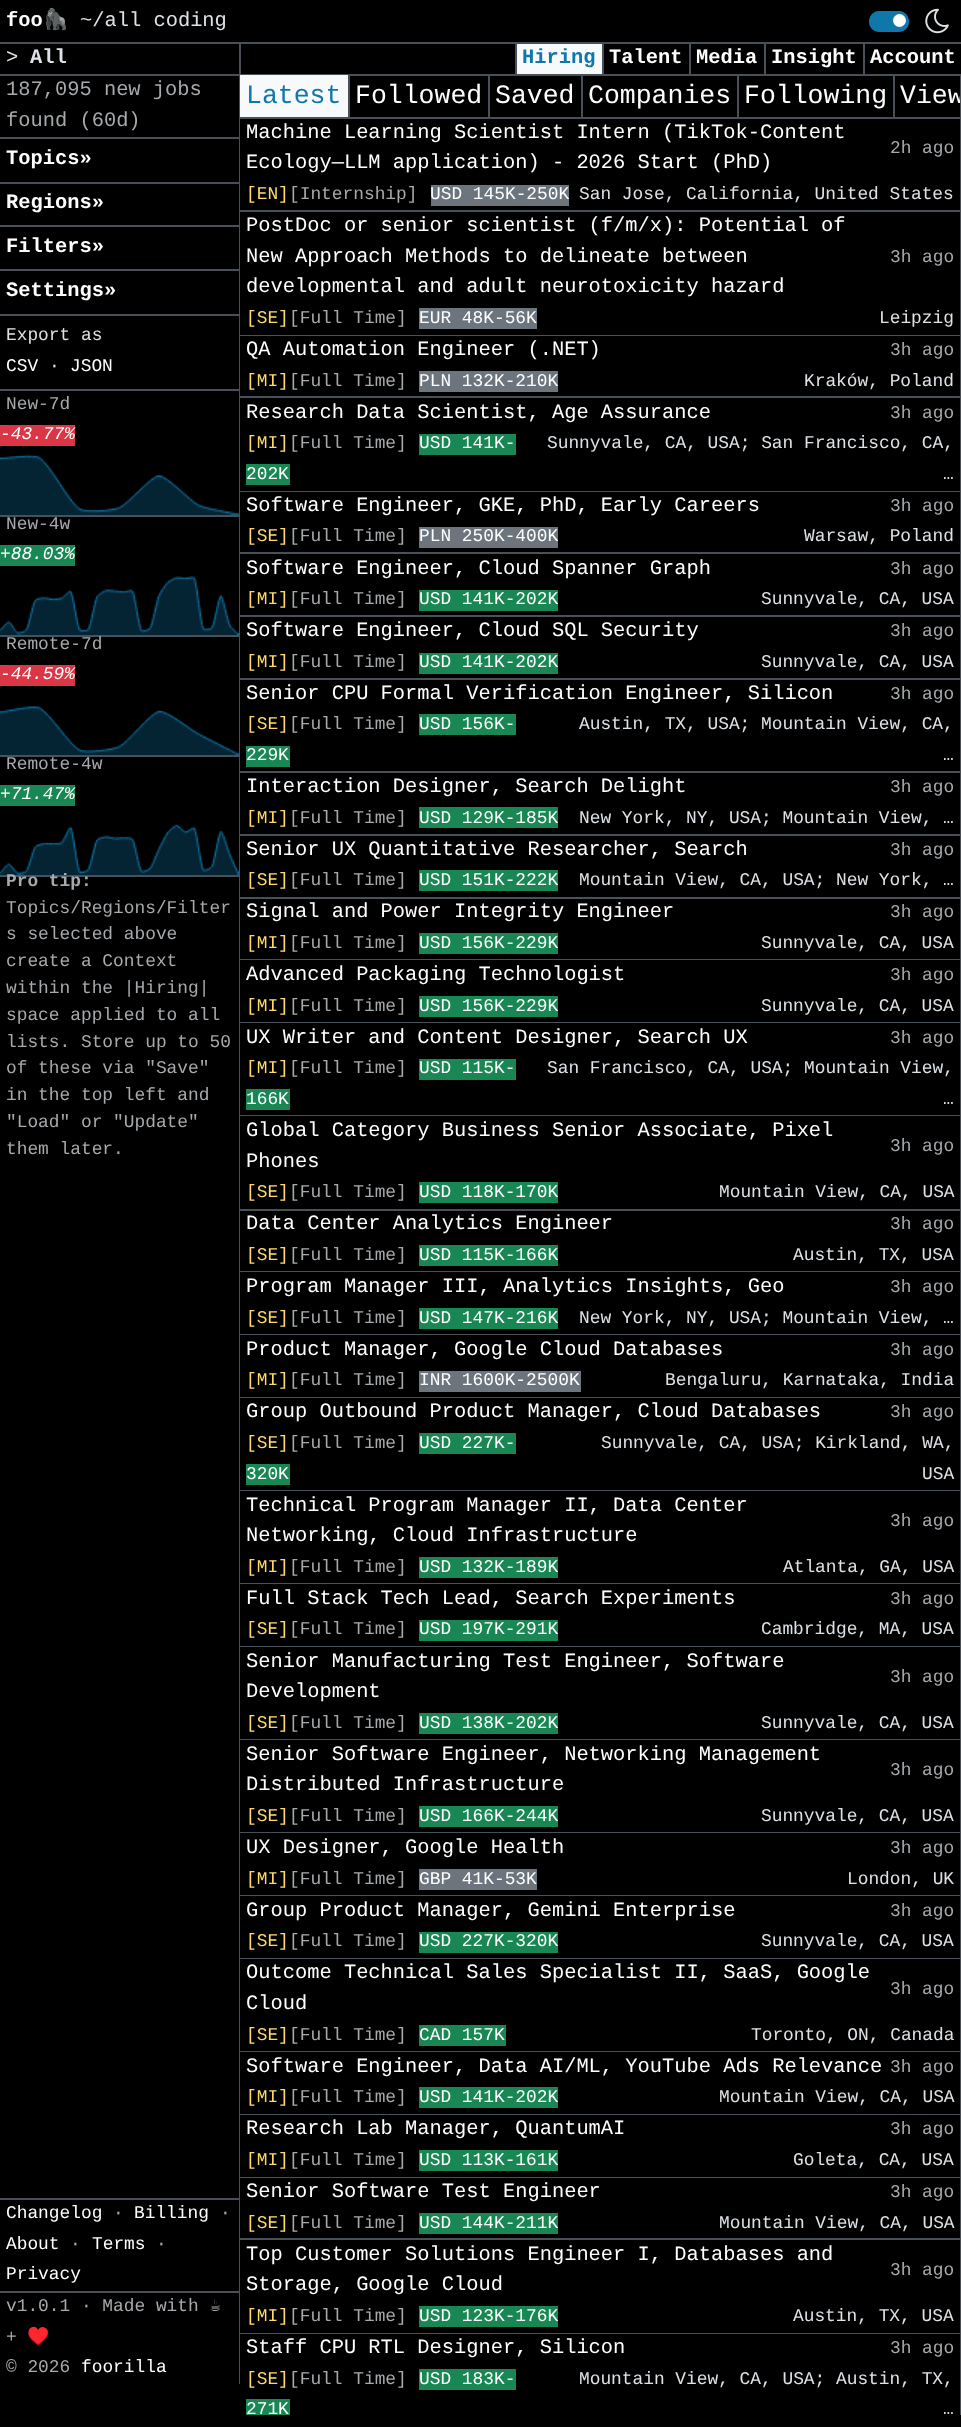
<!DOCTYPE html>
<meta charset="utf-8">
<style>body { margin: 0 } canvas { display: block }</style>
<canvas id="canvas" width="961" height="2427"></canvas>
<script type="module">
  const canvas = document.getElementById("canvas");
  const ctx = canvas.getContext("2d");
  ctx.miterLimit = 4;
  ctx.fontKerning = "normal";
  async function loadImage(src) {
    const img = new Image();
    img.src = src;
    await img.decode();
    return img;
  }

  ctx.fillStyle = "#000000";
  ctx.fillRect(0, 0, 961, 2427);
  ctx.fillStyle = "#495057";
  ctx.fillRect(0, 42, 961, 2);
  ctx.font = "bold 20.4px Liberation Mono";
  ctx.fillStyle = "#ffffff";
  ctx.fillText("foo", 6, 26);
  ctx.font = "bold 20.4px Noto Color Emoji";
  ctx.fillText("🦍", 43, 26);
  ctx.font = "20.4px Liberation Mono";
  ctx.fillStyle = "#dee2e6";
  ctx.fillText("~/all coding", 80, 26);
  ctx.fillStyle = "#1077aa";
  ctx.beginPath();
  ctx.roundRect(869, 11, 40, 21, 10.5);
  ctx.fill();
  ctx.fillStyle = "#ffffff";
  ctx.beginPath();
  ctx.arc(899.5, 20.5, 6.5, 0, Math.PI * 2);
  ctx.fill();
  ctx.beginPath();
  ctx.roundRect(870, 12, 38, 19, 9.5);
  ctx.strokeStyle = "#1077aa";
  ctx.lineWidth = 2;
  ctx.stroke();
  ctx.drawImage(await loadImage("img1.png"), 925, 8, 24, 26);
  ctx.fillStyle = "#495057";
  ctx.fillRect(239, 44, 2, 2340);
  ctx.fillRect(0, 74, 239, 2);
  ctx.fillStyle = "#dee2e6";
  ctx.fillText(">", 6, 63);
  ctx.font = "bold 20.4px Liberation Mono";
  ctx.fillText("All", 30, 63);
  ctx.fillStyle = "#495057";
  ctx.fillRect(0, 137, 239, 2);
  ctx.font = "20.4px Liberation Mono";
  ctx.fillStyle = "#a7aaad";
  ctx.fillText("187,095 new jobs", 6, 95);
  ctx.fillText("found (60d)", 6, 126);
  ctx.fillStyle = "#495057";
  ctx.fillRect(0, 182, 239, 2);
  ctx.font = "bold 20.4px Liberation Mono";
  ctx.fillStyle = "#ffffff";
  ctx.fillText("Topics»", 6, 164);
  ctx.fillStyle = "#495057";
  ctx.fillRect(0, 225, 239, 2);
  ctx.fillStyle = "#ffffff";
  ctx.fillText("Regions»", 6, 208);
  ctx.fillStyle = "#495057";
  ctx.fillRect(0, 269, 239, 2);
  ctx.fillStyle = "#ffffff";
  ctx.fillText("Filters»", 6, 252);
  ctx.fillStyle = "#495057";
  ctx.fillRect(0, 314, 239, 2);
  ctx.fillStyle = "#ffffff";
  ctx.fillText("Settings»", 6, 296);
  ctx.fillStyle = "#495057";
  ctx.fillRect(0, 389, 239, 2);
  ctx.font = "17.85px Liberation Mono";
  ctx.fillStyle = "#dee2e6";
  ctx.fillText("Export as", 6, 340);
  ctx.fillStyle = "#ffffff";
  ctx.fillText("CSV", 6, 371);
  ctx.fillStyle = "#dee2e6";
  ctx.fillText("·", 49, 371);
  ctx.fillStyle = "#ffffff";
  ctx.fillText("JSON", 70, 371);
  ctx.fillStyle = "#a7aaad";
  ctx.fillText("New-7d", 6, 409);
  ctx.fillStyle = "#dc3545";
  ctx.fillRect(0, 425, 75, 21);
  ctx.font = "italic 17.85px Liberation Mono";
  ctx.fillStyle = "#ffffff";
  ctx.fillText("-43.77%", 0, 439);
  ctx.fillStyle = "#495057";
  ctx.fillRect(0, 515, 239, 2);
  ctx.drawImage(await loadImage("img2.png"), 0, 454, 239, 61);
  ctx.font = "17.85px Liberation Mono";
  ctx.fillStyle = "#a7aaad";
  ctx.fillText("New-4w", 6, 529);
  ctx.fillStyle = "#198754";
  ctx.fillRect(0, 545, 75, 21);
  ctx.font = "italic 17.85px Liberation Mono";
  ctx.fillStyle = "#ffffff";
  ctx.fillText("+88.03%", 0, 559);
  ctx.fillStyle = "#495057";
  ctx.fillRect(0, 635, 239, 2);
  ctx.drawImage(await loadImage("img3.png"), 0, 575, 239, 60);
  ctx.font = "17.85px Liberation Mono";
  ctx.fillStyle = "#a7aaad";
  ctx.fillText("Remote-7d", 6, 649);
  ctx.fillStyle = "#dc3545";
  ctx.fillRect(0, 665, 75, 21);
  ctx.font = "italic 17.85px Liberation Mono";
  ctx.fillStyle = "#ffffff";
  ctx.fillText("-44.59%", 0, 679);
  ctx.fillStyle = "#495057";
  ctx.fillRect(0, 755, 239, 2);
  ctx.drawImage(await loadImage("img4.png"), 0, 706, 239, 49);
  ctx.font = "17.85px Liberation Mono";
  ctx.fillStyle = "#a7aaad";
  ctx.fillText("Remote-4w", 6, 769);
  ctx.fillStyle = "#198754";
  ctx.fillRect(0, 785, 75, 21);
  ctx.font = "italic 17.85px Liberation Mono";
  ctx.fillStyle = "#ffffff";
  ctx.fillText("+71.47%", 0, 799);
  ctx.fillStyle = "#495057";
  ctx.fillRect(0, 875, 239, 2);
  ctx.drawImage(await loadImage("img5.png"), 0, 824, 239, 51);
  ctx.font = "bold 17.85px Liberation Mono";
  ctx.fillStyle = "#a7aaad";
  ctx.fillText("Pro tip:", 6, 886);
  ctx.font = "17.85px Liberation Mono";
  ctx.fillText("Topics/Regions/Filter", 6, 913);
  ctx.fillText("s selected above", 6, 939);
  ctx.fillText("create a Context", 6, 966);
  ctx.fillText("within the |Hiring|", 6, 993);
  ctx.fillText("space applied to all", 6, 1020);
  ctx.fillText("lists. Store up to 50", 6, 1047);
  ctx.fillText("of these via \"Save\"", 6, 1073);
  ctx.fillText("in the top left and", 6, 1100);
  ctx.fillText("\"Load\" or \"Update\"", 6, 1127);
  ctx.fillText("them later.", 6, 1154);
  ctx.fillStyle = "#495057";
  ctx.fillRect(0, 2198, 239, 2);
  ctx.fillStyle = "#ffffff";
  ctx.fillText("Changelog", 6, 2218);
  ctx.fillStyle = "#a7aaad";
  ctx.fillText("·", 113, 2218);
  ctx.fillStyle = "#ffffff";
  ctx.fillText("Billing", 134, 2218);
  ctx.fillStyle = "#a7aaad";
  ctx.fillText("·", 220, 2218);
  ctx.fillStyle = "#ffffff";
  ctx.fillText("About", 6, 2249);
  ctx.fillStyle = "#a7aaad";
  ctx.fillText("·", 70, 2249);
  ctx.fillStyle = "#ffffff";
  ctx.fillText("Terms", 92, 2249);
  ctx.fillStyle = "#a7aaad";
  ctx.fillText("·", 156, 2249);
  ctx.fillStyle = "#ffffff";
  ctx.fillText("Privacy", 6, 2279);
  ctx.fillStyle = "#495057";
  ctx.fillRect(0, 2291, 239, 2);
  ctx.fillStyle = "#a7aaad";
  ctx.fillText("v1.0.1 · Made with", 6, 2311);
  ctx.font = "17.85px DejaVu Sans Mono";
  ctx.fillText("☕", 210, 2311);
  ctx.font = "17.85px Liberation Mono";
  ctx.fillText("+", 6, 2342);
  ctx.font = "17.85px Noto Color Emoji";
  ctx.fillText("♥️", 27, 2342);
  ctx.font = "17.85px Liberation Mono";
  ctx.fillText("© 2026", 6, 2372);
  ctx.fillStyle = "#ffffff";
  ctx.fillText("foorilla", 81, 2372);
  ctx.fillStyle = "#495057";
  ctx.fillRect(240, 74, 721, 2);
  ctx.fillStyle = "#f8f9fa";
  ctx.fillRect(517, 44, 85, 30);
  ctx.fillStyle = "#495057";
  ctx.fillRect(515, 44, 2, 30);
  ctx.font = "bold 20.4px Liberation Mono";
  ctx.fillStyle = "#1077aa";
  ctx.fillText("Hiring", 522, 63);
  ctx.fillStyle = "#495057";
  ctx.fillRect(602, 44, 2, 30);
  ctx.fillStyle = "#ffffff";
  ctx.fillText("Talent", 609, 63);
  ctx.fillStyle = "#495057";
  ctx.fillRect(689, 44, 2, 30);
  ctx.fillStyle = "#ffffff";
  ctx.fillText("Media", 696, 63);
  ctx.fillStyle = "#495057";
  ctx.fillRect(764, 44, 2, 30);
  ctx.fillStyle = "#ffffff";
  ctx.fillText("Insight", 771, 63);
  ctx.fillStyle = "#495057";
  ctx.fillRect(863, 44, 2, 30);
  ctx.fillStyle = "#ffffff";
  ctx.fillText("Account", 870, 63);
  ctx.fillStyle = "#495057";
  ctx.fillRect(960, 75, 1, 2340);
  ctx.fillRect(240, 117, 720, 2);
  ctx.fillStyle = "#f8f9fa";
  ctx.fillRect(240, 75, 108, 42);
  ctx.fillStyle = "#495057";
  ctx.fillRect(348, 75, 2, 42);
  ctx.font = "26.5px Liberation Mono";
  ctx.fillStyle = "#1077aa";
  ctx.fillText("Latest", 246, 103);
  ctx.fillStyle = "#495057";
  ctx.fillRect(488, 75, 2, 42);
  ctx.fillStyle = "#ffffff";
  ctx.fillText("Followed", 355, 103);
  ctx.fillStyle = "#495057";
  ctx.fillRect(581, 75, 2, 42);
  ctx.fillStyle = "#ffffff";
  ctx.fillText("Saved", 495, 103);
  ctx.fillStyle = "#495057";
  ctx.fillRect(737, 75, 2, 42);
  ctx.fillStyle = "#ffffff";
  ctx.fillText("Companies", 588, 103);
  ctx.fillStyle = "#495057";
  ctx.fillRect(893, 75, 2, 42);
  ctx.fillStyle = "#ffffff";
  ctx.fillText("Following", 744, 103);
  ctx.save();
  ctx.beginPath();
  ctx.rect(240, 75, 720, 42);
  ctx.clip();
  ctx.fillText("View", 900, 103);
  ctx.restore();
  ctx.fillStyle = "#000000";
  ctx.fillRect(240, 119, 1, 91);
  ctx.fillStyle = "#495057";
  ctx.fillRect(240, 210, 720, 2);
  ctx.font = "20.4px Liberation Mono";
  ctx.fillStyle = "#ffffff";
  ctx.fillText("Machine Learning Scientist Intern (TikTok-Content", 246, 138);
  ctx.fillText("Ecology—LLM application) - 2026 Start (PhD)", 246, 168);
  ctx.font = "17.85px Liberation Mono";
  ctx.fillStyle = "#a7aaad";
  ctx.fillText("2h ago", 890, 153);
  ctx.fillStyle = "#ffda6a";
  ctx.fillText("[EN]", 246, 199);
  ctx.fillStyle = "#a7aaad";
  ctx.fillText("[Internship]", 289, 199);
  ctx.fillStyle = "#6c757d";
  ctx.fillRect(431, 185, 138, 21);
  ctx.fillStyle = "#ffffff";
  ctx.fillText("USD 145K-250K", 430, 199);
  ctx.fillStyle = "#dee2e6";
  ctx.fillText("San Jose, California, United States", 579, 199);
  ctx.fillStyle = "#000000";
  ctx.fillRect(240, 212, 1, 123);
  ctx.fillStyle = "#495057";
  ctx.fillRect(240, 335, 720, 1);
  ctx.font = "20.4px Liberation Mono";
  ctx.fillStyle = "#ffffff";
  ctx.fillText("PostDoc or senior scientist (f/m/x): Potential of", 246, 231);
  ctx.fillText("New Approach Methods to delineate between", 246, 262);
  ctx.fillText("developmental and adult neurotoxicity hazard", 246, 292);
  ctx.font = "17.85px Liberation Mono";
  ctx.fillStyle = "#a7aaad";
  ctx.fillText("3h ago", 890, 262);
  ctx.fillStyle = "#ffda6a";
  ctx.fillText("[SE]", 246, 323);
  ctx.fillStyle = "#a7aaad";
  ctx.fillText("[Full Time]", 289, 323);
  ctx.fillStyle = "#6c757d";
  ctx.fillRect(419, 308, 118, 21);
  ctx.fillStyle = "#ffffff";
  ctx.fillText("EUR 48K-56K", 419, 323);
  ctx.fillStyle = "#dee2e6";
  ctx.fillText("Leipzig", 879, 323);
  ctx.fillStyle = "#000000";
  ctx.fillRect(240, 336, 1, 60);
  ctx.fillStyle = "#495057";
  ctx.fillRect(240, 396, 720, 2);
  ctx.font = "20.4px Liberation Mono";
  ctx.fillStyle = "#ffffff";
  ctx.fillText("QA Automation Engineer (.NET)", 246, 355);
  ctx.font = "17.85px Liberation Mono";
  ctx.fillStyle = "#a7aaad";
  ctx.fillText("3h ago", 890, 355);
  ctx.fillStyle = "#ffda6a";
  ctx.fillText("[MI]", 246, 386);
  ctx.fillStyle = "#a7aaad";
  ctx.fillText("[Full Time]", 289, 386);
  ctx.fillStyle = "#6c757d";
  ctx.fillRect(419, 371, 139, 21);
  ctx.fillStyle = "#ffffff";
  ctx.fillText("PLN 132K-210K", 419, 386);
  ctx.fillStyle = "#dee2e6";
  ctx.fillText("Kraków, Poland", 804, 386);
  ctx.fillStyle = "#000000";
  ctx.fillRect(240, 398, 1, 93);
  ctx.fillStyle = "#495057";
  ctx.fillRect(240, 491, 720, 1);
  ctx.font = "20.4px Liberation Mono";
  ctx.fillStyle = "#ffffff";
  ctx.fillText("Research Data Scientist, Age Assurance", 246, 418);
  ctx.font = "17.85px Liberation Mono";
  ctx.fillStyle = "#a7aaad";
  ctx.fillText("3h ago", 890, 418);
  ctx.fillStyle = "#ffda6a";
  ctx.fillText("[MI]", 246, 448);
  ctx.fillStyle = "#a7aaad";
  ctx.fillText("[Full Time]", 289, 448);
  ctx.fillStyle = "#198754";
  ctx.fillRect(419, 434, 97, 21);
  ctx.fillStyle = "#ffffff";
  ctx.fillText("USD 141K-", 419, 448);
  ctx.fillStyle = "#198754";
  ctx.fillRect(246, 464, 44, 21);
  ctx.fillStyle = "#ffffff";
  ctx.fillText("202K", 246, 479);
  ctx.fillStyle = "#dee2e6";
  ctx.fillText("Sunnyvale, CA, USA; San Francisco, CA,", 547, 448);
  ctx.fillText("…", 943, 479);
  ctx.fillStyle = "#000000";
  ctx.fillRect(240, 492, 1, 60);
  ctx.fillStyle = "#495057";
  ctx.fillRect(240, 552, 720, 2);
  ctx.font = "20.4px Liberation Mono";
  ctx.fillStyle = "#ffffff";
  ctx.fillText("Software Engineer, GKE, PhD, Early Careers", 246, 511);
  ctx.font = "17.85px Liberation Mono";
  ctx.fillStyle = "#a7aaad";
  ctx.fillText("3h ago", 890, 511);
  ctx.fillStyle = "#ffda6a";
  ctx.fillText("[SE]", 246, 541);
  ctx.fillStyle = "#a7aaad";
  ctx.fillText("[Full Time]", 289, 541);
  ctx.fillStyle = "#6c757d";
  ctx.fillRect(419, 527, 139, 21);
  ctx.fillStyle = "#ffffff";
  ctx.fillText("PLN 250K-400K", 419, 541);
  ctx.fillStyle = "#dee2e6";
  ctx.fillText("Warsaw, Poland", 804, 541);
  ctx.fillStyle = "#000000";
  ctx.fillRect(240, 554, 1, 61);
  ctx.fillStyle = "#495057";
  ctx.fillRect(240, 615, 720, 2);
  ctx.font = "20.4px Liberation Mono";
  ctx.fillStyle = "#ffffff";
  ctx.fillText("Software Engineer, Cloud Spanner Graph", 246, 574);
  ctx.font = "17.85px Liberation Mono";
  ctx.fillStyle = "#a7aaad";
  ctx.fillText("3h ago", 890, 574);
  ctx.fillStyle = "#ffda6a";
  ctx.fillText("[MI]", 246, 604);
  ctx.fillStyle = "#a7aaad";
  ctx.fillText("[Full Time]", 289, 604);
  ctx.fillStyle = "#198754";
  ctx.fillRect(419, 590, 139, 21);
  ctx.fillStyle = "#ffffff";
  ctx.fillText("USD 141K-202K", 419, 604);
  ctx.fillStyle = "#dee2e6";
  ctx.fillText("Sunnyvale, CA, USA", 761, 604);
  ctx.fillStyle = "#000000";
  ctx.fillRect(240, 617, 1, 61);
  ctx.fillStyle = "#495057";
  ctx.fillRect(240, 678, 720, 2);
  ctx.font = "20.4px Liberation Mono";
  ctx.fillStyle = "#ffffff";
  ctx.fillText("Software Engineer, Cloud SQL Security", 246, 636);
  ctx.font = "17.85px Liberation Mono";
  ctx.fillStyle = "#a7aaad";
  ctx.fillText("3h ago", 890, 636);
  ctx.fillStyle = "#ffda6a";
  ctx.fillText("[MI]", 246, 667);
  ctx.fillStyle = "#a7aaad";
  ctx.fillText("[Full Time]", 289, 667);
  ctx.fillStyle = "#198754";
  ctx.fillRect(419, 653, 139, 21);
  ctx.fillStyle = "#ffffff";
  ctx.fillText("USD 141K-202K", 419, 667);
  ctx.fillStyle = "#dee2e6";
  ctx.fillText("Sunnyvale, CA, USA", 761, 667);
  ctx.fillStyle = "#000000";
  ctx.fillRect(240, 680, 1, 91);
  ctx.fillStyle = "#495057";
  ctx.fillRect(240, 771, 720, 2);
  ctx.font = "20.4px Liberation Mono";
  ctx.fillStyle = "#ffffff";
  ctx.fillText("Senior CPU Formal Verification Engineer, Silicon", 246, 699);
  ctx.font = "17.85px Liberation Mono";
  ctx.fillStyle = "#a7aaad";
  ctx.fillText("3h ago", 890, 699);
  ctx.fillStyle = "#ffda6a";
  ctx.fillText("[SE]", 246, 729);
  ctx.fillStyle = "#a7aaad";
  ctx.fillText("[Full Time]", 289, 729);
  ctx.fillStyle = "#198754";
  ctx.fillRect(419, 714, 97, 21);
  ctx.fillStyle = "#ffffff";
  ctx.fillText("USD 156K-", 419, 729);
  ctx.fillStyle = "#198754";
  ctx.fillRect(246, 746, 44, 21);
  ctx.fillStyle = "#ffffff";
  ctx.fillText("229K", 246, 760);
  ctx.fillStyle = "#dee2e6";
  ctx.fillText("Austin, TX, USA; Mountain View, CA,", 579, 729);
  ctx.fillText("…", 943, 760);
  ctx.fillStyle = "#000000";
  ctx.fillRect(240, 773, 1, 61);
  ctx.fillStyle = "#495057";
  ctx.fillRect(240, 834, 720, 2);
  ctx.font = "20.4px Liberation Mono";
  ctx.fillStyle = "#ffffff";
  ctx.fillText("Interaction Designer, Search Delight", 246, 792);
  ctx.font = "17.85px Liberation Mono";
  ctx.fillStyle = "#a7aaad";
  ctx.fillText("3h ago", 890, 792);
  ctx.fillStyle = "#ffda6a";
  ctx.fillText("[MI]", 246, 823);
  ctx.fillStyle = "#a7aaad";
  ctx.fillText("[Full Time]", 289, 823);
  ctx.fillStyle = "#198754";
  ctx.fillRect(419, 807, 139, 21);
  ctx.fillStyle = "#ffffff";
  ctx.fillText("USD 129K-185K", 419, 823);
  ctx.fillStyle = "#dee2e6";
  ctx.fillText("New York, NY, USA; Mountain View, …", 579, 823);
  ctx.fillStyle = "#000000";
  ctx.fillRect(240, 836, 1, 61);
  ctx.fillStyle = "#495057";
  ctx.fillRect(240, 897, 720, 2);
  ctx.font = "20.4px Liberation Mono";
  ctx.fillStyle = "#ffffff";
  ctx.fillText("Senior UX Quantitative Researcher, Search", 246, 855);
  ctx.font = "17.85px Liberation Mono";
  ctx.fillStyle = "#a7aaad";
  ctx.fillText("3h ago", 890, 855);
  ctx.fillStyle = "#ffda6a";
  ctx.fillText("[SE]", 246, 885);
  ctx.fillStyle = "#a7aaad";
  ctx.fillText("[Full Time]", 289, 885);
  ctx.fillStyle = "#198754";
  ctx.fillRect(419, 870, 139, 21);
  ctx.fillStyle = "#ffffff";
  ctx.fillText("USD 151K-222K", 419, 885);
  ctx.fillStyle = "#dee2e6";
  ctx.fillText("Mountain View, CA, USA; New York, …", 579, 885);
  ctx.fillStyle = "#000000";
  ctx.fillRect(240, 899, 1, 60);
  ctx.fillStyle = "#495057";
  ctx.fillRect(240, 959, 720, 1);
  ctx.font = "20.4px Liberation Mono";
  ctx.fillStyle = "#ffffff";
  ctx.fillText("Signal and Power Integrity Engineer", 246, 917);
  ctx.font = "17.85px Liberation Mono";
  ctx.fillStyle = "#a7aaad";
  ctx.fillText("3h ago", 890, 917);
  ctx.fillStyle = "#ffda6a";
  ctx.fillText("[MI]", 246, 948);
  ctx.fillStyle = "#a7aaad";
  ctx.fillText("[Full Time]", 289, 948);
  ctx.fillStyle = "#198754";
  ctx.fillRect(419, 933, 139, 21);
  ctx.fillStyle = "#ffffff";
  ctx.fillText("USD 156K-229K", 419, 948);
  ctx.fillStyle = "#dee2e6";
  ctx.fillText("Sunnyvale, CA, USA", 761, 948);
  ctx.fillStyle = "#000000";
  ctx.fillRect(240, 960, 1, 62);
  ctx.fillStyle = "#495057";
  ctx.fillRect(240, 1022, 720, 1);
  ctx.font = "20.4px Liberation Mono";
  ctx.fillStyle = "#ffffff";
  ctx.fillText("Advanced Packaging Technologist", 246, 980);
  ctx.font = "17.85px Liberation Mono";
  ctx.fillStyle = "#a7aaad";
  ctx.fillText("3h ago", 890, 980);
  ctx.fillStyle = "#ffda6a";
  ctx.fillText("[MI]", 246, 1011);
  ctx.fillStyle = "#a7aaad";
  ctx.fillText("[Full Time]", 289, 1011);
  ctx.fillStyle = "#198754";
  ctx.fillRect(419, 996, 139, 21);
  ctx.fillStyle = "#ffffff";
  ctx.fillText("USD 156K-229K", 419, 1011);
  ctx.fillStyle = "#dee2e6";
  ctx.fillText("Sunnyvale, CA, USA", 761, 1011);
  ctx.fillStyle = "#000000";
  ctx.fillRect(240, 1023, 1, 92);
  ctx.fillStyle = "#495057";
  ctx.fillRect(240, 1115, 720, 1);
  ctx.font = "20.4px Liberation Mono";
  ctx.fillStyle = "#ffffff";
  ctx.fillText("UX Writer and Content Designer, Search UX", 246, 1043);
  ctx.font = "17.85px Liberation Mono";
  ctx.fillStyle = "#a7aaad";
  ctx.fillText("3h ago", 890, 1043);
  ctx.fillStyle = "#ffda6a";
  ctx.fillText("[MI]", 246, 1073);
  ctx.fillStyle = "#a7aaad";
  ctx.fillText("[Full Time]", 289, 1073);
  ctx.fillStyle = "#198754";
  ctx.fillRect(419, 1059, 97, 21);
  ctx.fillStyle = "#ffffff";
  ctx.fillText("USD 115K-", 419, 1073);
  ctx.fillStyle = "#198754";
  ctx.fillRect(246, 1089, 44, 21);
  ctx.fillStyle = "#ffffff";
  ctx.fillText("166K", 246, 1104);
  ctx.fillStyle = "#dee2e6";
  ctx.fillText("San Francisco, CA, USA; Mountain View,", 547, 1073);
  ctx.fillText("…", 943, 1104);
  ctx.fillStyle = "#000000";
  ctx.fillRect(240, 1116, 1, 93);
  ctx.fillStyle = "#495057";
  ctx.fillRect(240, 1209, 720, 2);
  ctx.font = "20.4px Liberation Mono";
  ctx.fillStyle = "#ffffff";
  ctx.fillText("Global Category Business Senior Associate, Pixel", 246, 1136);
  ctx.fillText("Phones", 246, 1167);
  ctx.font = "17.85px Liberation Mono";
  ctx.fillStyle = "#a7aaad";
  ctx.fillText("3h ago", 890, 1151);
  ctx.fillStyle = "#ffda6a";
  ctx.fillText("[SE]", 246, 1197);
  ctx.fillStyle = "#a7aaad";
  ctx.fillText("[Full Time]", 289, 1197);
  ctx.fillStyle = "#198754";
  ctx.fillRect(419, 1182, 139, 21);
  ctx.fillStyle = "#ffffff";
  ctx.fillText("USD 118K-170K", 419, 1197);
  ctx.fillStyle = "#dee2e6";
  ctx.fillText("Mountain View, CA, USA", 719, 1197);
  ctx.fillStyle = "#000000";
  ctx.fillRect(240, 1211, 1, 60);
  ctx.fillStyle = "#495057";
  ctx.fillRect(240, 1271, 720, 1);
  ctx.font = "20.4px Liberation Mono";
  ctx.fillStyle = "#ffffff";
  ctx.fillText("Data Center Analytics Engineer", 246, 1229);
  ctx.font = "17.85px Liberation Mono";
  ctx.fillStyle = "#a7aaad";
  ctx.fillText("3h ago", 890, 1229);
  ctx.fillStyle = "#ffda6a";
  ctx.fillText("[SE]", 246, 1260);
  ctx.fillStyle = "#a7aaad";
  ctx.fillText("[Full Time]", 289, 1260);
  ctx.fillStyle = "#198754";
  ctx.fillRect(419, 1245, 139, 21);
  ctx.fillStyle = "#ffffff";
  ctx.fillText("USD 115K-166K", 419, 1260);
  ctx.fillStyle = "#dee2e6";
  ctx.fillText("Austin, TX, USA", 793, 1260);
  ctx.fillStyle = "#000000";
  ctx.fillRect(240, 1272, 1, 62);
  ctx.fillStyle = "#495057";
  ctx.fillRect(240, 1334, 720, 1);
  ctx.font = "20.4px Liberation Mono";
  ctx.fillStyle = "#ffffff";
  ctx.fillText("Program Manager III, Analytics Insights, Geo", 246, 1292);
  ctx.font = "17.85px Liberation Mono";
  ctx.fillStyle = "#a7aaad";
  ctx.fillText("3h ago", 890, 1292);
  ctx.fillStyle = "#ffda6a";
  ctx.fillText("[SE]", 246, 1323);
  ctx.fillStyle = "#a7aaad";
  ctx.fillText("[Full Time]", 289, 1323);
  ctx.fillStyle = "#198754";
  ctx.fillRect(419, 1308, 139, 21);
  ctx.fillStyle = "#ffffff";
  ctx.fillText("USD 147K-216K", 419, 1323);
  ctx.fillStyle = "#dee2e6";
  ctx.fillText("New York, NY, USA; Mountain View, …", 579, 1323);
  ctx.fillStyle = "#000000";
  ctx.fillRect(240, 1335, 1, 62);
  ctx.fillStyle = "#495057";
  ctx.fillRect(240, 1397, 720, 1);
  ctx.font = "20.4px Liberation Mono";
  ctx.fillStyle = "#ffffff";
  ctx.fillText("Product Manager, Google Cloud Databases", 246, 1355);
  ctx.font = "17.85px Liberation Mono";
  ctx.fillStyle = "#a7aaad";
  ctx.fillText("3h ago", 890, 1355);
  ctx.fillStyle = "#ffda6a";
  ctx.fillText("[MI]", 246, 1385);
  ctx.fillStyle = "#a7aaad";
  ctx.fillText("[Full Time]", 289, 1385);
  ctx.fillStyle = "#6c757d";
  ctx.fillRect(419, 1371, 162, 21);
  ctx.fillStyle = "#ffffff";
  ctx.fillText("INR 1600K-2500K", 419, 1385);
  ctx.fillStyle = "#dee2e6";
  ctx.fillText("Bengaluru, Karnataka, India", 665, 1385);
  ctx.fillStyle = "#000000";
  ctx.fillRect(240, 1398, 1, 92);
  ctx.fillStyle = "#495057";
  ctx.fillRect(240, 1490, 720, 1);
  ctx.font = "20.4px Liberation Mono";
  ctx.fillStyle = "#ffffff";
  ctx.fillText("Group Outbound Product Manager, Cloud Databases", 246, 1417);
  ctx.font = "17.85px Liberation Mono";
  ctx.fillStyle = "#a7aaad";
  ctx.fillText("3h ago", 890, 1417);
  ctx.fillStyle = "#ffda6a";
  ctx.fillText("[SE]", 246, 1448);
  ctx.fillStyle = "#a7aaad";
  ctx.fillText("[Full Time]", 289, 1448);
  ctx.fillStyle = "#198754";
  ctx.fillRect(419, 1433, 97, 21);
  ctx.fillStyle = "#ffffff";
  ctx.fillText("USD 227K-", 419, 1448);
  ctx.fillStyle = "#198754";
  ctx.fillRect(246, 1464, 44, 21);
  ctx.fillStyle = "#ffffff";
  ctx.fillText("320K", 246, 1479);
  ctx.fillStyle = "#dee2e6";
  ctx.fillText("Sunnyvale, CA, USA; Kirkland, WA,", 601, 1448);
  ctx.fillText("USA", 922, 1479);
  ctx.fillStyle = "#000000";
  ctx.fillRect(240, 1491, 1, 92);
  ctx.fillStyle = "#495057";
  ctx.fillRect(240, 1583, 720, 1);
  ctx.font = "20.4px Liberation Mono";
  ctx.fillStyle = "#ffffff";
  ctx.fillText("Technical Program Manager II, Data Center", 246, 1511);
  ctx.fillText("Networking, Cloud Infrastructure", 246, 1541);
  ctx.font = "17.85px Liberation Mono";
  ctx.fillStyle = "#a7aaad";
  ctx.fillText("3h ago", 890, 1526);
  ctx.fillStyle = "#ffda6a";
  ctx.fillText("[MI]", 246, 1572);
  ctx.fillStyle = "#a7aaad";
  ctx.fillText("[Full Time]", 289, 1572);
  ctx.fillStyle = "#198754";
  ctx.fillRect(419, 1557, 139, 21);
  ctx.fillStyle = "#ffffff";
  ctx.fillText("USD 132K-189K", 419, 1572);
  ctx.fillStyle = "#dee2e6";
  ctx.fillText("Atlanta, GA, USA", 783, 1572);
  ctx.fillStyle = "#000000";
  ctx.fillRect(240, 1584, 1, 62);
  ctx.fillStyle = "#495057";
  ctx.fillRect(240, 1646, 720, 1);
  ctx.font = "20.4px Liberation Mono";
  ctx.fillStyle = "#ffffff";
  ctx.fillText("Full Stack Tech Lead, Search Experiments", 246, 1604);
  ctx.font = "17.85px Liberation Mono";
  ctx.fillStyle = "#a7aaad";
  ctx.fillText("3h ago", 890, 1604);
  ctx.fillStyle = "#ffda6a";
  ctx.fillText("[SE]", 246, 1634);
  ctx.fillStyle = "#a7aaad";
  ctx.fillText("[Full Time]", 289, 1634);
  ctx.fillStyle = "#198754";
  ctx.fillRect(419, 1620, 139, 21);
  ctx.fillStyle = "#ffffff";
  ctx.fillText("USD 197K-291K", 419, 1634);
  ctx.fillStyle = "#dee2e6";
  ctx.fillText("Cambridge, MA, USA", 761, 1634);
  ctx.fillStyle = "#000000";
  ctx.fillRect(240, 1647, 1, 92);
  ctx.fillStyle = "#495057";
  ctx.fillRect(240, 1739, 720, 1);
  ctx.font = "20.4px Liberation Mono";
  ctx.fillStyle = "#ffffff";
  ctx.fillText("Senior Manufacturing Test Engineer, Software", 246, 1667);
  ctx.fillText("Development", 246, 1697);
  ctx.font = "17.85px Liberation Mono";
  ctx.fillStyle = "#a7aaad";
  ctx.fillText("3h ago", 890, 1682);
  ctx.fillStyle = "#ffda6a";
  ctx.fillText("[SE]", 246, 1728);
  ctx.fillStyle = "#a7aaad";
  ctx.fillText("[Full Time]", 289, 1728);
  ctx.fillStyle = "#198754";
  ctx.fillRect(419, 1713, 139, 21);
  ctx.fillStyle = "#ffffff";
  ctx.fillText("USD 138K-202K", 419, 1728);
  ctx.fillStyle = "#dee2e6";
  ctx.fillText("Sunnyvale, CA, USA", 761, 1728);
  ctx.fillStyle = "#000000";
  ctx.fillRect(240, 1740, 1, 92);
  ctx.fillStyle = "#495057";
  ctx.fillRect(240, 1832, 720, 1);
  ctx.font = "20.4px Liberation Mono";
  ctx.fillStyle = "#ffffff";
  ctx.fillText("Senior Software Engineer, Networking Management", 246, 1760);
  ctx.fillText("Distributed Infrastructure", 246, 1790);
  ctx.font = "17.85px Liberation Mono";
  ctx.fillStyle = "#a7aaad";
  ctx.fillText("3h ago", 890, 1775);
  ctx.fillStyle = "#ffda6a";
  ctx.fillText("[SE]", 246, 1821);
  ctx.fillStyle = "#a7aaad";
  ctx.fillText("[Full Time]", 289, 1821);
  ctx.fillStyle = "#198754";
  ctx.fillRect(419, 1806, 139, 21);
  ctx.fillStyle = "#ffffff";
  ctx.fillText("USD 166K-244K", 419, 1821);
  ctx.fillStyle = "#dee2e6";
  ctx.fillText("Sunnyvale, CA, USA", 761, 1821);
  ctx.fillStyle = "#000000";
  ctx.fillRect(240, 1833, 1, 62);
  ctx.fillStyle = "#495057";
  ctx.fillRect(240, 1895, 720, 1);
  ctx.font = "20.4px Liberation Mono";
  ctx.fillStyle = "#ffffff";
  ctx.fillText("UX Designer, Google Health", 246, 1853);
  ctx.font = "17.85px Liberation Mono";
  ctx.fillStyle = "#a7aaad";
  ctx.fillText("3h ago", 890, 1853);
  ctx.fillStyle = "#ffda6a";
  ctx.fillText("[MI]", 246, 1884);
  ctx.fillStyle = "#a7aaad";
  ctx.fillText("[Full Time]", 289, 1884);
  ctx.fillStyle = "#6c757d";
  ctx.fillRect(419, 1869, 118, 21);
  ctx.fillStyle = "#ffffff";
  ctx.fillText("GBP 41K-53K", 419, 1884);
  ctx.fillStyle = "#dee2e6";
  ctx.fillText("London, UK", 847, 1884);
  ctx.fillStyle = "#000000";
  ctx.fillRect(240, 1896, 1, 62);
  ctx.fillStyle = "#495057";
  ctx.fillRect(240, 1958, 720, 1);
  ctx.font = "20.4px Liberation Mono";
  ctx.fillStyle = "#ffffff";
  ctx.fillText("Group Product Manager, Gemini Enterprise", 246, 1916);
  ctx.font = "17.85px Liberation Mono";
  ctx.fillStyle = "#a7aaad";
  ctx.fillText("3h ago", 890, 1916);
  ctx.fillStyle = "#ffda6a";
  ctx.fillText("[SE]", 246, 1946);
  ctx.fillStyle = "#a7aaad";
  ctx.fillText("[Full Time]", 289, 1946);
  ctx.fillStyle = "#198754";
  ctx.fillRect(419, 1932, 139, 21);
  ctx.fillStyle = "#ffffff";
  ctx.fillText("USD 227K-320K", 419, 1946);
  ctx.fillStyle = "#dee2e6";
  ctx.fillText("Sunnyvale, CA, USA", 761, 1946);
  ctx.fillStyle = "#000000";
  ctx.fillRect(240, 1959, 1, 92);
  ctx.fillStyle = "#495057";
  ctx.fillRect(240, 2051, 720, 1);
  ctx.font = "20.4px Liberation Mono";
  ctx.fillStyle = "#ffffff";
  ctx.fillText("Outcome Technical Sales Specialist II, SaaS, Google", 246, 1978);
  ctx.fillText("Cloud", 246, 2009);
  ctx.font = "17.85px Liberation Mono";
  ctx.fillStyle = "#a7aaad";
  ctx.fillText("3h ago", 890, 1994);
  ctx.fillStyle = "#ffda6a";
  ctx.fillText("[SE]", 246, 2040);
  ctx.fillStyle = "#a7aaad";
  ctx.fillText("[Full Time]", 289, 2040);
  ctx.fillStyle = "#198754";
  ctx.fillRect(419, 2025, 87, 21);
  ctx.fillStyle = "#ffffff";
  ctx.fillText("CAD 157K", 419, 2040);
  ctx.fillStyle = "#dee2e6";
  ctx.fillText("Toronto, ON, Canada", 751, 2040);
  ctx.fillStyle = "#000000";
  ctx.fillRect(240, 2052, 1, 62);
  ctx.fillStyle = "#495057";
  ctx.fillRect(240, 2114, 720, 1);
  ctx.font = "20.4px Liberation Mono";
  ctx.fillStyle = "#ffffff";
  ctx.fillText("Software Engineer, Data AI/ML, YouTube Ads Relevance", 246, 2072);
  ctx.font = "17.85px Liberation Mono";
  ctx.fillStyle = "#a7aaad";
  ctx.fillText("3h ago", 890, 2072);
  ctx.fillStyle = "#ffda6a";
  ctx.fillText("[MI]", 246, 2102);
  ctx.fillStyle = "#a7aaad";
  ctx.fillText("[Full Time]", 289, 2102);
  ctx.fillStyle = "#198754";
  ctx.fillRect(419, 2087, 139, 21);
  ctx.fillStyle = "#ffffff";
  ctx.fillText("USD 141K-202K", 419, 2102);
  ctx.fillStyle = "#dee2e6";
  ctx.fillText("Mountain View, CA, USA", 719, 2102);
  ctx.fillStyle = "#000000";
  ctx.fillRect(240, 2115, 1, 62);
  ctx.fillStyle = "#495057";
  ctx.fillRect(240, 2177, 720, 1);
  ctx.font = "20.4px Liberation Mono";
  ctx.fillStyle = "#ffffff";
  ctx.fillText("Research Lab Manager, QuantumAI", 246, 2134);
  ctx.font = "17.85px Liberation Mono";
  ctx.fillStyle = "#a7aaad";
  ctx.fillText("3h ago", 890, 2134);
  ctx.fillStyle = "#ffda6a";
  ctx.fillText("[MI]", 246, 2165);
  ctx.fillStyle = "#a7aaad";
  ctx.fillText("[Full Time]", 289, 2165);
  ctx.fillStyle = "#198754";
  ctx.fillRect(419, 2150, 139, 21);
  ctx.fillStyle = "#ffffff";
  ctx.fillText("USD 113K-161K", 419, 2165);
  ctx.fillStyle = "#dee2e6";
  ctx.fillText("Goleta, CA, USA", 793, 2165);
  ctx.fillStyle = "#000000";
  ctx.fillRect(240, 2178, 1, 60);
  ctx.fillStyle = "#495057";
  ctx.fillRect(240, 2238, 720, 2);
  ctx.font = "20.4px Liberation Mono";
  ctx.fillStyle = "#ffffff";
  ctx.fillText("Senior Software Test Engineer", 246, 2197);
  ctx.font = "17.85px Liberation Mono";
  ctx.fillStyle = "#a7aaad";
  ctx.fillText("3h ago", 890, 2197);
  ctx.fillStyle = "#ffda6a";
  ctx.fillText("[SE]", 246, 2228);
  ctx.fillStyle = "#a7aaad";
  ctx.fillText("[Full Time]", 289, 2228);
  ctx.fillStyle = "#198754";
  ctx.fillRect(419, 2213, 139, 21);
  ctx.fillStyle = "#ffffff";
  ctx.fillText("USD 144K-211K", 419, 2228);
  ctx.fillStyle = "#dee2e6";
  ctx.fillText("Mountain View, CA, USA", 719, 2228);
  ctx.fillStyle = "#000000";
  ctx.fillRect(240, 2240, 1, 93);
  ctx.fillStyle = "#495057";
  ctx.fillRect(240, 2333, 720, 1);
  ctx.font = "20.4px Liberation Mono";
  ctx.fillStyle = "#ffffff";
  ctx.fillText("Top Customer Solutions Engineer I, Databases and", 246, 2260);
  ctx.fillText("Storage, Google Cloud", 246, 2290);
  ctx.font = "17.85px Liberation Mono";
  ctx.fillStyle = "#a7aaad";
  ctx.fillText("3h ago", 890, 2275);
  ctx.fillStyle = "#ffda6a";
  ctx.fillText("[MI]", 246, 2321);
  ctx.fillStyle = "#a7aaad";
  ctx.fillText("[Full Time]", 289, 2321);
  ctx.fillStyle = "#198754";
  ctx.fillRect(419, 2306, 139, 21);
  ctx.fillStyle = "#ffffff";
  ctx.fillText("USD 123K-176K", 419, 2321);
  ctx.fillStyle = "#dee2e6";
  ctx.fillText("Austin, TX, USA", 793, 2321);
  ctx.fillStyle = "#000000";
  ctx.fillRect(240, 2334, 1, 50);
  ctx.font = "20.4px Liberation Mono";
  ctx.fillStyle = "#ffffff";
  ctx.fillText("Staff CPU RTL Designer, Silicon", 246, 2353);
  ctx.font = "17.85px Liberation Mono";
  ctx.fillStyle = "#a7aaad";
  ctx.fillText("3h ago", 890, 2353);
  ctx.fillStyle = "#ffda6a";
  ctx.fillText("[SE]", 246, 2384);
  ctx.fillStyle = "#a7aaad";
  ctx.fillText("[Full Time]", 289, 2384);
  ctx.fillStyle = "#198754";
  ctx.fillRect(419, 2369, 97, 21);
  ctx.fillStyle = "#ffffff";
  ctx.fillText("USD 183K-", 419, 2384);
  ctx.fillStyle = "#198754";
  ctx.fillRect(246, 2399, 44, 16);
  ctx.fillStyle = "#ffffff";
  ctx.fillText("271K", 246, 2414);
  ctx.fillStyle = "#dee2e6";
  ctx.fillText("Mountain View, CA, USA; Austin, TX,", 579, 2384);
  ctx.fillText("…", 943, 2414);
</script>
